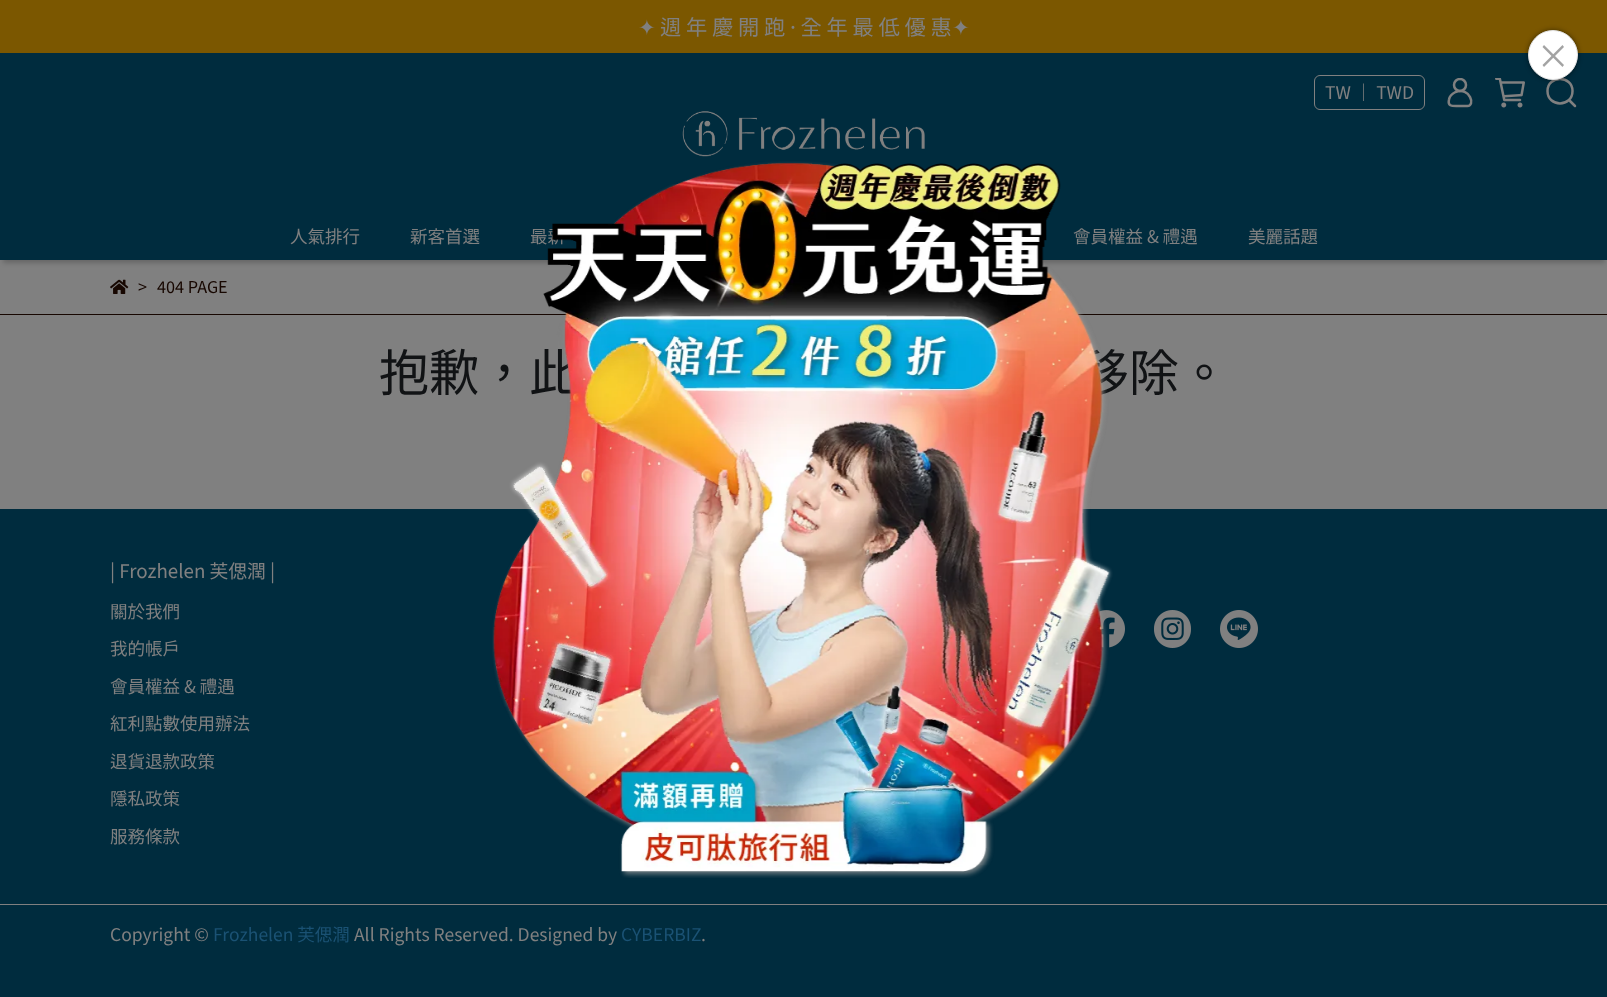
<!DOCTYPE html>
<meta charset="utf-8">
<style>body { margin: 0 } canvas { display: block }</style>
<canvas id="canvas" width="1607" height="997"></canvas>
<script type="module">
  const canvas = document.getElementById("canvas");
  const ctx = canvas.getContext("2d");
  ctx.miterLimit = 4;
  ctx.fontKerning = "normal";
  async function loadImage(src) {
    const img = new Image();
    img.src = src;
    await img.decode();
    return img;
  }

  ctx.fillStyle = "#808080";
  ctx.fillRect(0, 0, 1607, 997);
  ctx.fillStyle = "#7b5700";
  ctx.fillRect(0, 0, 1607, 53);
  ctx.font = "21.25px DejaVu Sans";
  ctx.fillStyle = "#808080";
  ctx.fillText("✦", 638, 35);
  ctx.font = "21.25px Chocolate Classical Sans";
  ctx.fillText("週 年 慶 開 跑 · 全 年 最 低 優 惠", 660, 35);
  ctx.font = "21.25px DejaVu Sans";
  ctx.fillText("✦", 952, 35);
  ctx.fillStyle = "#002c3e";
  ctx.fillRect(0, 53, 1607, 161);
  ctx.beginPath();
  ctx.roundRect(1314.5, 75.5, 110, 34, 5.5);
  ctx.strokeStyle = "#808080";
  ctx.stroke();
  ctx.font = "17.5px Chocolate Classical Sans";
  ctx.fillStyle = "#808080";
  ctx.fillText("TW ｜ TWD", 1325, 99);
  ctx.save();
  ctx.beginPath();
  ctx.rect(1445, 78, 30, 30);
  ctx.clip();
  ctx.beginPath();
  ctx.arc(1460, 85, 6, 0, Math.PI * 2);
  ctx.lineWidth = 2.5;
  ctx.stroke();
  ctx.restore();
  ctx.beginPath();
  ctx.moveTo(1467, 106);
  ctx.lineTo(1457.5, 106);
  ctx.bezierCurveTo(1452, 106, 1447.5, 106.5, 1449, 99.5);
  ctx.bezierCurveTo(1449.5, 96, 1452.5, 93.5, 1455.5, 92);
  ctx.bezierCurveTo(1470, 86.5, 1476, 106.5, 1467, 106);
  ctx.closePath();
  ctx.lineWidth = 2.5;
  ctx.stroke();
  ctx.drawImage(await loadImage("img1.png"), 1495, 78, 30, 30);
  ctx.beginPath();
  ctx.moveTo(1572.5, 91);
  ctx.bezierCurveTo(1572.5, 107.5, 1547.5, 107.5, 1547.5, 91);
  ctx.bezierCurveTo(1547.5, 75, 1572.5, 75, 1572.5, 91);
  ctx.closePath();
  ctx.moveTo(1570, 101);
  ctx.lineTo(1575, 106);
  ctx.lineCap = "round";
  ctx.lineJoin = "round";
  ctx.stroke();
  ctx.drawImage(await loadImage("img2.png"), 682, 111, 243, 46);
  ctx.fillStyle = "rgba(0, 0, 0, 0.2)";
  ctx.filter = "blur(2.5px)";
  ctx.beginPath();
  ctx.rect(3, 221, 1602, 42);
  ctx.fill();
  ctx.filter = "none";
  ctx.fillStyle = "#002c3e";
  ctx.fillRect(0, 214, 1607, 46);
  ctx.fillStyle = "#808080";
  ctx.fillText("人氣排行", 290, 243);
  ctx.fillText("新客首選", 410, 243);
  ctx.fillText("最新", 530, 243);
  ctx.fillText("會員權益 & 禮遇", 1073, 243);
  ctx.fillText("美麗話題", 1248, 243);
  ctx.fillStyle = "rgba(0, 0, 0, 0.5)";
  ctx.filter = "blur(2.5px)";
  ctx.beginPath();
  ctx.roundRect(1528, 30, 50, 50, 25);
  ctx.fill();
  ctx.filter = "none";
  ctx.fillStyle = "#ffffff";
  ctx.beginPath();
  ctx.arc(1553, 55, 24.5, 0, Math.PI * 2);
  ctx.fill();
  ctx.strokeStyle = "#e2e2e2";
  ctx.lineWidth = 1;
  ctx.stroke();
  ctx.fillStyle = "#a3a3a3";
  ctx.beginPath();
  ctx.moveTo(1544, 45);
  ctx.lineTo(1564, 65);
  ctx.lineTo(1562.5, 67);
  ctx.lineTo(1542.5, 47);
  ctx.closePath();
  ctx.fill();
  ctx.beginPath();
  ctx.moveTo(1542.5, 65);
  ctx.lineTo(1562.5, 45);
  ctx.lineTo(1564, 47);
  ctx.lineTo(1544, 67);
  ctx.closePath();
  ctx.fill();
  ctx.fillStyle = "#170701";
  ctx.fillRect(0, 314, 1607, 1);
  ctx.font = "50px Chocolate Classical Sans";
  ctx.fillStyle = "#111315";
  ctx.fillText("抱歉，此", 379, 391);
  ctx.fillText("移除。", 1079, 391);
  ctx.fillStyle = "#002c3e";
  ctx.fillRect(0, 509, 1607, 488);
  ctx.drawImage(await loadImage("img5.png"), 1098, 610, 27, 38);
  ctx.drawImage(await loadImage("img3.png"), 492, 161, 621, 717);
  ctx.drawImage(await loadImage("img4.png"), 110, 279, 19, 15);
  ctx.font = "16.25px Chocolate Classical Sans";
  ctx.fillStyle = "#170701";
  ctx.fillText(">", 138, 293);
  ctx.fillText("404 PAGE", 157, 293);
  ctx.font = "18.75px Chocolate Classical Sans";
  ctx.fillStyle = "#808080";
  ctx.fillText("| Frozhelen 芙偲潤 |", 110, 578);
  ctx.font = "17.5px Chocolate Classical Sans";
  ctx.fillText("關於我們", 110, 618);
  ctx.fillText("我的帳戶", 110, 655);
  ctx.fillText("會員權益 & 禮遇", 110, 693);
  ctx.fillText("紅利點數使用辦法", 110, 730);
  ctx.fillText("退貨退款政策", 110, 768);
  ctx.fillText("隱私政策", 110, 805);
  ctx.fillText("服務條款", 110, 843);
  ctx.drawImage(await loadImage("img6.png"), 1154, 610, 37, 38);
  ctx.drawImage(await loadImage("img7.png"), 1220, 610, 38, 38);
  ctx.fillRect(0, 904, 1607, 1);
  ctx.fillText("Copyright ©", 110, 941);
  ctx.fillStyle = "#1a5274";
  ctx.fillText("Frozhelen 芙偲潤", 213, 941);
  ctx.fillStyle = "#808080";
  ctx.fillText("All Rights Reserved. Designed by", 354, 941);
  ctx.fillStyle = "#1a5274";
  ctx.fillText("CYBERBIZ", 621, 941);
  ctx.fillStyle = "#808080";
  ctx.fillText(".", 701, 941);
</script>
